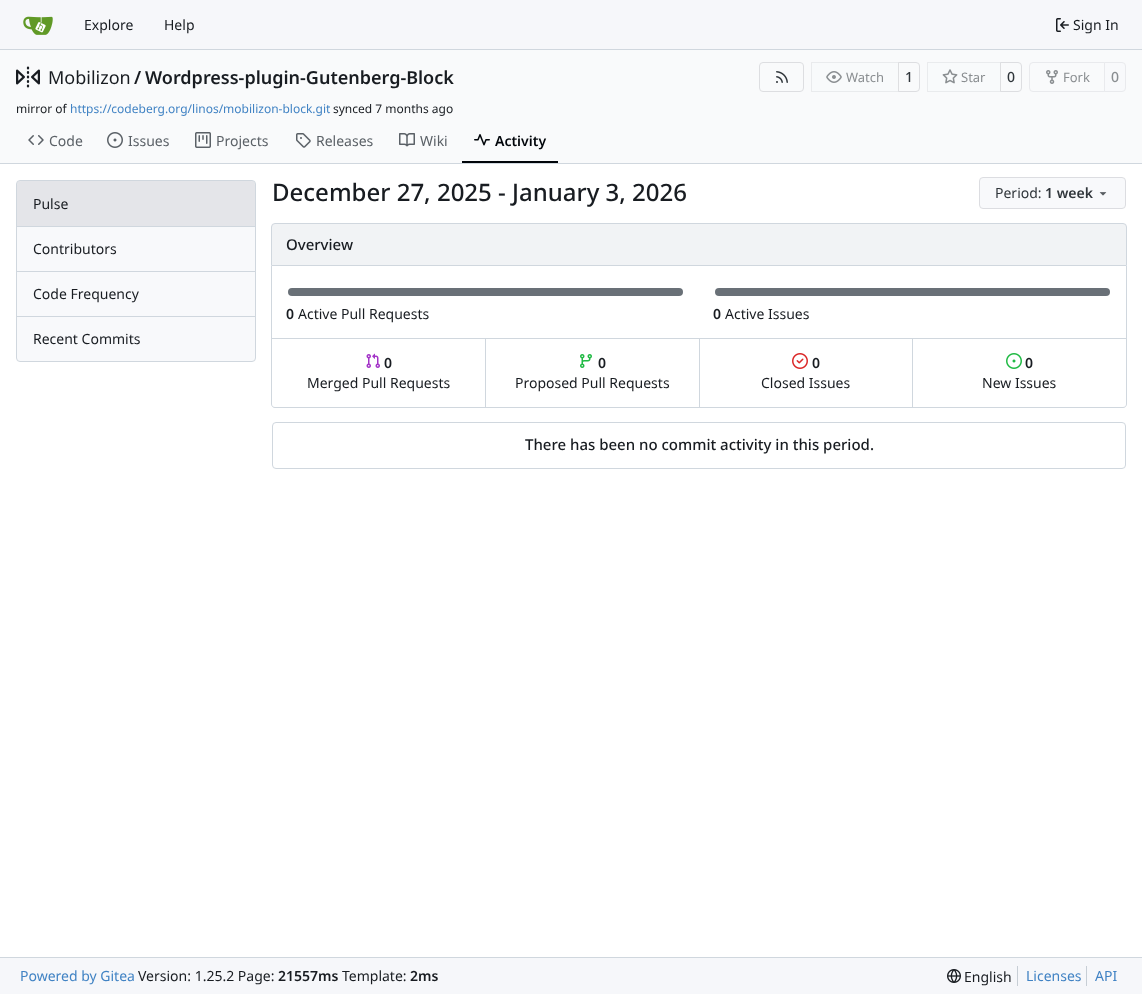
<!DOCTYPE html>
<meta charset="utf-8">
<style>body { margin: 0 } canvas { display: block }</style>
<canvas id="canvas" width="1142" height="994"></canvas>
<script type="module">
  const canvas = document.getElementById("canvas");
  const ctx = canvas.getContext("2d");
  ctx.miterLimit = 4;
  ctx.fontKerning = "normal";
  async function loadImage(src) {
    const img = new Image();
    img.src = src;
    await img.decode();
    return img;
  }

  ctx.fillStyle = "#ffffff";
  ctx.fillRect(0, 0, 1142, 994);
  ctx.fillStyle = "#f6f7fa";
  ctx.fillRect(0, 0, 1142, 49);
  ctx.fillStyle = "#d0d7de";
  ctx.fillRect(0, 49, 1142, 1);
  ctx.drawImage(await loadImage("img1.png"), 23, 16, 30, 19);
  ctx.font = "14px Noto Sans";
  ctx.fillStyle = "#181c21";
  ctx.fillText("Explore", 84, 30);
  ctx.fillText("Help", 164, 30);
  ctx.drawImage(await loadImage("img2.png"), 1056, 18, 13, 14);
  ctx.fillText("Sign In", 1073, 30);
  ctx.fillStyle = "#f9fafb";
  ctx.fillRect(0, 50, 1142, 113);
  ctx.drawImage(await loadImage("img3.png"), 16, 66, 24, 22);
  ctx.font = "18px Noto Sans";
  ctx.fillStyle = "#181c21";
  ctx.fillText("Mobilizon", 48, 84);
  ctx.font = "600 18px Noto Sans";
  ctx.fillText("/", 134, 84);
  ctx.fillText("Wordpress-plugin-Gutenberg-Block", 145, 84);
  ctx.beginPath();
  ctx.roundRect(759.5, 62.5, 44, 29, 3.5);
  ctx.strokeStyle = "#dddee1";
  ctx.stroke();
  ctx.drawImage(await loadImage("img4.png"), 776, 71, 12, 12);
  ctx.beginPath();
  ctx.roundRect(898.5, 62.5, 21, 29, [0, 3.5, 3.5, 0]);
  ctx.stroke();
  ctx.fillStyle = "rgba(248, 249, 251, 0.55)";
  ctx.beginPath();
  ctx.roundRect(811, 62, 88, 30, [4, 0, 0, 4]);
  ctx.fill();
  ctx.strokeStyle = "rgba(0, 0, 23, 0.06)";
  ctx.strokeRect(811.5, 62.5, 87, 29);
  ctx.drawImage(await loadImage("img5.png"), 826, 71, 16, 12);
  ctx.font = "13px Noto Sans";
  ctx.fillStyle = "#8a8e91";
  ctx.fillText("Watch", 846, 82);
  ctx.font = "500 14px Noto Sans";
  ctx.fillStyle = "#30363b";
  ctx.fillText("1", 905, 82);
  ctx.beginPath();
  ctx.roundRect(1000.5, 62.5, 21, 29, [0, 3.5, 3.5, 0]);
  ctx.strokeStyle = "#dddee1";
  ctx.stroke();
  ctx.fillStyle = "rgba(248, 249, 251, 0.55)";
  ctx.beginPath();
  ctx.roundRect(927, 62, 74, 30, [4, 0, 0, 4]);
  ctx.fill();
  ctx.strokeStyle = "rgba(0, 0, 23, 0.06)";
  ctx.strokeRect(927.5, 62.5, 73, 29);
  ctx.drawImage(await loadImage("img6.png"), 942, 69, 16, 15);
  ctx.font = "13px Noto Sans";
  ctx.fillStyle = "#8a8e91";
  ctx.fillText("Star", 961, 82);
  ctx.font = "500 14px Noto Sans";
  ctx.fillStyle = "#30363b";
  ctx.fillText("0", 1007, 82);
  ctx.beginPath();
  ctx.roundRect(1029.5, 62.5, 75, 29, [3.5, 0, 0, 3.5]);
  ctx.strokeStyle = "#e9eaed";
  ctx.stroke();
  ctx.drawImage(await loadImage("img7.png"), 1046, 70, 12, 14);
  ctx.font = "13px Noto Sans";
  ctx.fillStyle = "#8a8e91";
  ctx.fillText("Fork", 1063, 82);
  ctx.fillStyle = "#f8f9fb";
  ctx.beginPath();
  ctx.roundRect(1104.5, 62.5, 21, 29, [0, 3.5, 3.5, 0]);
  ctx.fill();
  ctx.stroke();
  ctx.font = "500 14px Noto Sans";
  ctx.fillStyle = "#8a8e91";
  ctx.fillText("0", 1111, 82);
  ctx.font = "12px Noto Sans";
  ctx.fillStyle = "#181c21";
  ctx.fillText("mirror of", 16, 113);
  ctx.fillStyle = "#4183c4";
  ctx.fillText("https://codeberg.org/linos/mobilizon-block.git", 70, 113);
  ctx.fillStyle = "#181c21";
  ctx.fillText("synced 7 months ago", 333, 113);
  ctx.drawImage(await loadImage("img8.png"), 28, 135, 16, 10);
  ctx.font = "14px Noto Sans";
  ctx.fillStyle = "#5b6167";
  ctx.fillText("Code", 49, 146);
  ctx.drawImage(await loadImage("img9.png"), 107, 132, 16, 16);
  ctx.fillText("Issues", 128, 146);
  ctx.drawImage(await loadImage("img10.png"), 195, 132, 16, 16);
  ctx.fillText("Projects", 216, 146);
  ctx.drawImage(await loadImage("img11.png"), 296, 133, 15, 15);
  ctx.fillText("Releases", 316, 146);
  ctx.drawImage(await loadImage("img12.png"), 399, 133, 16, 14);
  ctx.fillText("Wiki", 420, 146);
  ctx.fillStyle = "#01050a";
  ctx.fillRect(462, 161, 96, 2);
  ctx.drawImage(await loadImage("img13.png"), 474, 134, 16, 12);
  ctx.font = "600 14px Noto Sans";
  ctx.fillText("Activity", 495, 146);
  ctx.fillStyle = "#d0d7de";
  ctx.fillRect(0, 163, 1142, 1);
  ctx.fillStyle = "#f8f9fb";
  ctx.beginPath();
  ctx.roundRect(16.5, 180.5, 239, 181, 3.5);
  ctx.fill();
  ctx.strokeStyle = "#d0d7de";
  ctx.stroke();
  ctx.fillStyle = "rgba(0, 0, 23, 0.08)";
  ctx.beginPath();
  ctx.roundRect(17, 181, 238, 45, [4, 4, 0, 0]);
  ctx.fill();
  ctx.font = "14px Noto Sans";
  ctx.fillStyle = "#181c21";
  ctx.fillText("Pulse", 33, 209);
  ctx.fillStyle = "#d0d7de";
  ctx.fillRect(17, 226, 238, 1);
  ctx.fillStyle = "#181c21";
  ctx.fillText("Contributors", 33, 254);
  ctx.fillStyle = "#d0d7de";
  ctx.fillRect(17, 271, 238, 1);
  ctx.fillStyle = "#181c21";
  ctx.fillText("Code Frequency", 33, 299);
  ctx.fillStyle = "#d0d7de";
  ctx.fillRect(17, 316, 238, 1);
  ctx.fillStyle = "#181c21";
  ctx.fillText("Recent Commits", 33, 344);
  ctx.font = "500 24px Noto Sans";
  ctx.fillText("December 27, 2025 - January 3, 2026", 272, 201);
  ctx.fillStyle = "#f8f9fb";
  ctx.beginPath();
  ctx.roundRect(979.5, 177.5, 146, 31, 3.5);
  ctx.fill();
  ctx.strokeStyle = "#dcdde1";
  ctx.stroke();
  ctx.font = "14px Noto Sans";
  ctx.fillStyle = "#30363b";
  ctx.fillText("Period:", 995, 198);
  ctx.font = "600 14px Noto Sans";
  ctx.fillText("1 week", 1045, 198);
  ctx.drawImage(await loadImage("img14.png"), 1099, 192, 8, 4);
  ctx.fillStyle = "#f1f3f5";
  ctx.beginPath();
  ctx.roundRect(271.5, 223.5, 855, 42, [3.5, 3.5, 0, 0]);
  ctx.fill();
  ctx.strokeStyle = "#d0d7de";
  ctx.stroke();
  ctx.font = "500 15px Noto Sans";
  ctx.fillStyle = "#181c21";
  ctx.fillText("Overview", 286, 250);
  ctx.fillStyle = "#d0d7de";
  ctx.fillRect(1126, 266, 1, 73);
  ctx.fillRect(271, 338, 856, 1);
  ctx.fillRect(271, 266, 1, 73);
  ctx.fillStyle = "#697077";
  ctx.beginPath();
  ctx.roundRect(288, 288, 395, 8, 4);
  ctx.fill();
  ctx.font = "600 14px Noto Sans";
  ctx.fillStyle = "#181c21";
  ctx.fillText("0", 286, 319);
  ctx.font = "14px Noto Sans";
  ctx.fillText("Active Pull Requests", 298, 319);
  ctx.fillStyle = "#697077";
  ctx.beginPath();
  ctx.roundRect(715, 288, 395, 8, 4);
  ctx.fill();
  ctx.font = "600 14px Noto Sans";
  ctx.fillStyle = "#181c21";
  ctx.fillText("0", 713, 319);
  ctx.font = "14px Noto Sans";
  ctx.fillText("Active Issues", 725, 319);
  ctx.fillStyle = "#d0d7de";
  ctx.beginPath();
  ctx.moveTo(271, 339);
  ctx.lineTo(1127, 339);
  ctx.lineTo(1127, 404);
  ctx.bezierCurveTo(1127, 406, 1125, 408, 1123, 408);
  ctx.lineTo(275, 408);
  ctx.bezierCurveTo(273, 408, 271, 406, 271, 404);
  ctx.closePath();
  ctx.moveTo(272, 339);
  ctx.lineTo(1126, 339);
  ctx.lineTo(1126, 404);
  ctx.bezierCurveTo(1126, 406, 1125, 407, 1123, 407);
  ctx.lineTo(275, 407);
  ctx.bezierCurveTo(273, 407, 272, 406, 272, 404);
  ctx.closePath();
  ctx.fill("evenodd");
  ctx.drawImage(await loadImage("img15.png"), 366, 353, 14, 15);
  ctx.font = "600 14px Noto Sans";
  ctx.fillStyle = "#181c21";
  ctx.fillText("0", 384, 368);
  ctx.font = "14px Noto Sans";
  ctx.fillText("Merged Pull Requests", 307, 388);
  ctx.fillStyle = "#d0d7de";
  ctx.fillRect(485, 339, 1, 68);
  ctx.drawImage(await loadImage("img16.png"), 580, 354, 12, 14);
  ctx.font = "600 14px Noto Sans";
  ctx.fillStyle = "#181c21";
  ctx.fillText("0", 598, 368);
  ctx.font = "14px Noto Sans";
  ctx.fillText("Proposed Pull Requests", 515, 388);
  ctx.fillStyle = "#d0d7de";
  ctx.fillRect(699, 339, 1, 68);
  ctx.drawImage(await loadImage("img17.png"), 792, 353, 16, 16);
  ctx.font = "600 14px Noto Sans";
  ctx.fillStyle = "#181c21";
  ctx.fillText("0", 812, 368);
  ctx.font = "14px Noto Sans";
  ctx.fillText("Closed Issues", 761, 388);
  ctx.fillStyle = "#d0d7de";
  ctx.fillRect(912, 339, 1, 68);
  ctx.drawImage(await loadImage("img18.png"), 1006, 353, 16, 16);
  ctx.font = "600 14px Noto Sans";
  ctx.fillStyle = "#181c21";
  ctx.fillText("0", 1025, 368);
  ctx.font = "14px Noto Sans";
  ctx.fillText("New Issues", 982, 388);
  ctx.beginPath();
  ctx.roundRect(272.5, 422.5, 853, 46, 3.5);
  ctx.stroke();
  ctx.font = "500 15px Noto Sans";
  ctx.fillText("There has been no commit activity in this period.", 525, 450);
  ctx.fillStyle = "#f6f7fa";
  ctx.fillRect(0, 958, 1142, 36);
  ctx.fillStyle = "#d0d7de";
  ctx.fillRect(0, 957, 1142, 1);
  ctx.font = "14px Noto Sans";
  ctx.fillStyle = "#4183c4";
  ctx.fillText("Powered by Gitea", 20, 981);
  ctx.fillStyle = "#181c21";
  ctx.fillText("Version: 1.25.2 Page:", 138, 981);
  ctx.font = "600 14px Noto Sans";
  ctx.fillText("21557ms", 278, 981);
  ctx.font = "14px Noto Sans";
  ctx.fillText("Template:", 342, 981);
  ctx.font = "600 14px Noto Sans";
  ctx.fillText("2ms", 410, 981);
  ctx.drawImage(await loadImage("img19.png"), 947, 969, 14, 14);
  ctx.font = "14px Noto Sans";
  ctx.fillText("English", 964, 982);
  ctx.fillStyle = "#c7ced5";
  ctx.fillRect(1017, 966, 1, 20);
  ctx.fillStyle = "#4183c4";
  ctx.fillText("Licenses", 1026, 981);
  ctx.fillStyle = "#c7ced5";
  ctx.fillRect(1086, 966, 1, 20);
  ctx.fillStyle = "#4183c4";
  ctx.fillText("API", 1095, 981);
</script>
